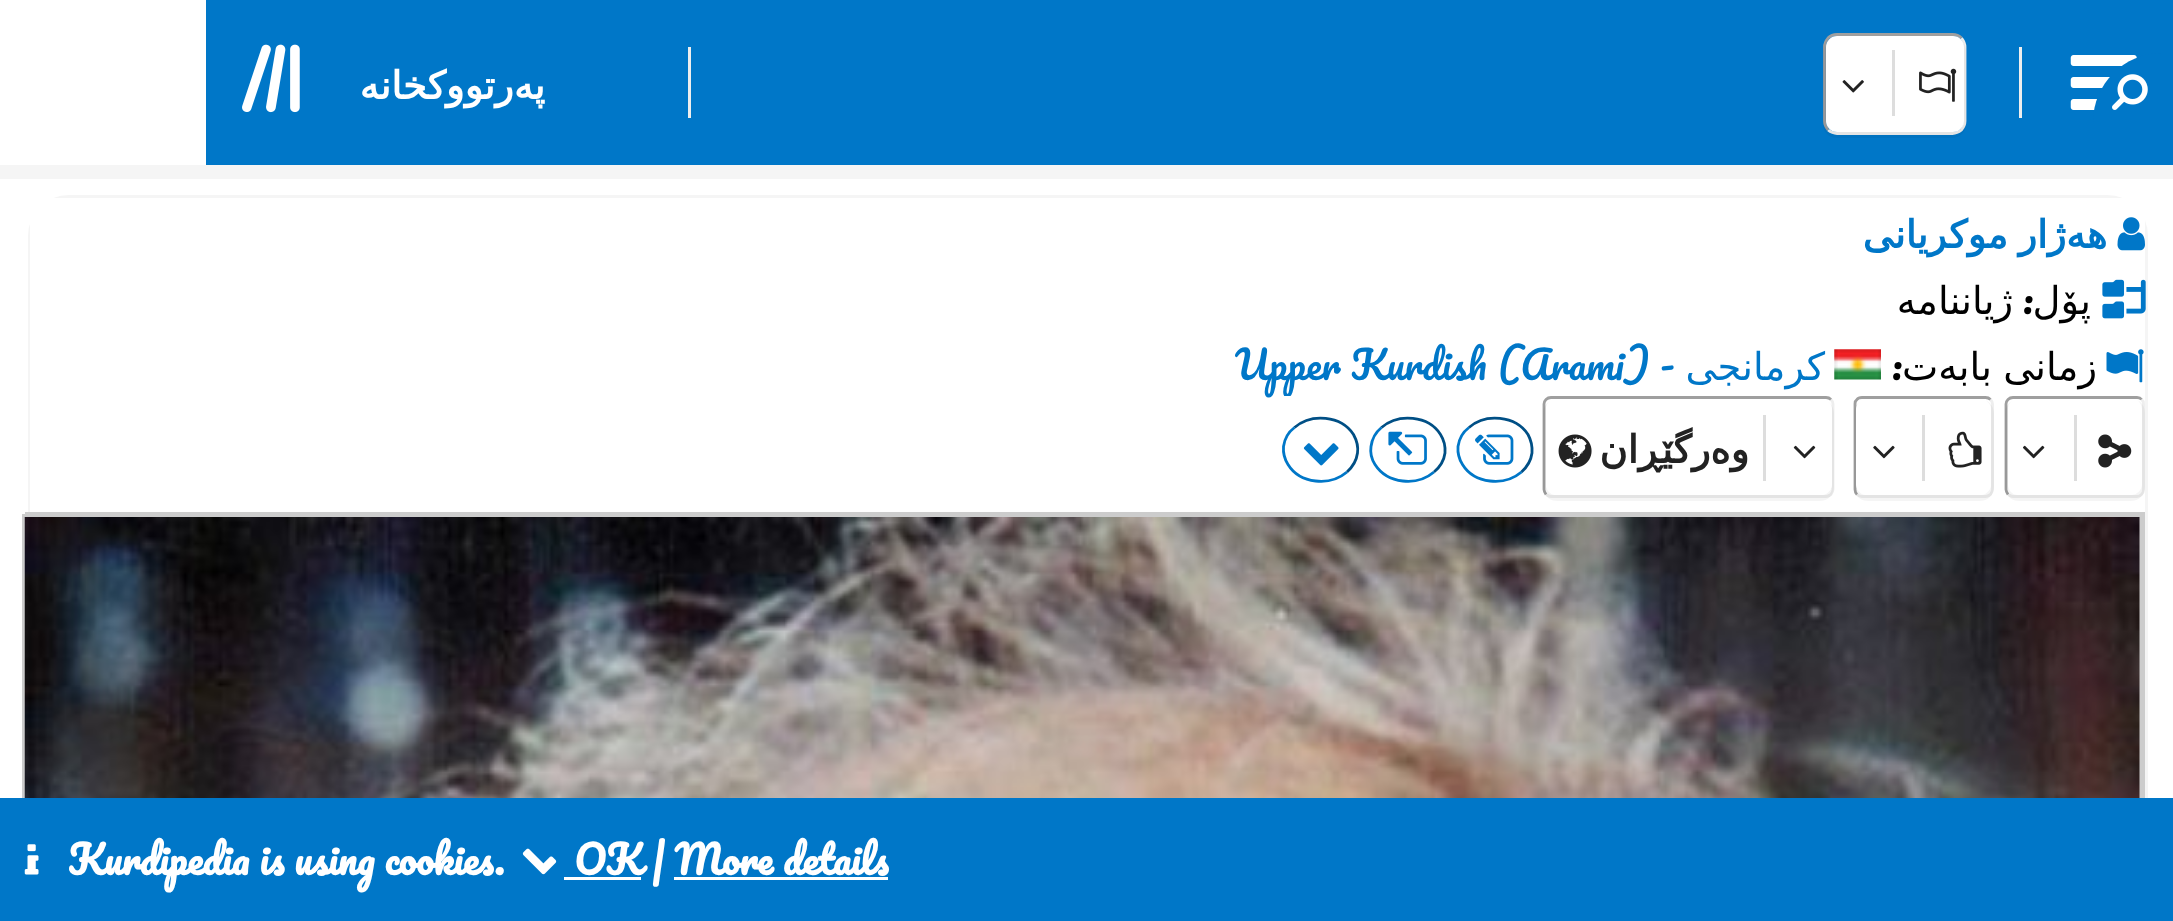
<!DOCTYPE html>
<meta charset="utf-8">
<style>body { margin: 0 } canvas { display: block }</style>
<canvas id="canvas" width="2173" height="921"></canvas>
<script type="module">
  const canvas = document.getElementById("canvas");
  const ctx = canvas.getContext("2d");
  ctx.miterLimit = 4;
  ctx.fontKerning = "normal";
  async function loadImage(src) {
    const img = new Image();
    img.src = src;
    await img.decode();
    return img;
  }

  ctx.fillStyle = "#ffffff";
  ctx.fillRect(0, 0, 2173, 921);
  ctx.fillStyle = "#0077c8";
  ctx.fillRect(206, 0, 1967, 165);
  ctx.drawImage(await loadImage("img1.png"), 242, 44, 58, 69);
  ctx.direction = "rtl";
  ctx.font = "bold 38.5px DejaVu Sans";
  ctx.fillStyle = "#ffffff";
  ctx.fillText("پەرتووکخانە", 545, 99);
  ctx.fillStyle = "#eeeeee";
  ctx.fillRect(688, 47, 3, 71);
  ctx.beginPath();
  ctx.moveTo(1961.5, 38);
  ctx.bezierCurveTo(1963.5, 40.5, 1965, 43.5, 1965, 47);
  ctx.lineTo(1965, 121);
  ctx.bezierCurveTo(1965, 124.5, 1963.5, 127.5, 1961.5, 130);
  ctx.bezierCurveTo(1959, 132, 1956, 133.5, 1952.5, 133.5);
  ctx.lineTo(1837, 133.5);
  ctx.bezierCurveTo(1833.5, 133.5, 1830.5, 132, 1828, 130);
  ctx.strokeStyle = "#eeeeee";
  ctx.lineWidth = 2.8;
  ctx.stroke();
  ctx.beginPath();
  ctx.moveTo(1828, 130);
  ctx.bezierCurveTo(1826, 127.5, 1824.5, 124.5, 1824.5, 121);
  ctx.lineTo(1824.5, 47);
  ctx.bezierCurveTo(1824.5, 43.5, 1826, 40.5, 1828, 38);
  ctx.bezierCurveTo(1830.5, 35.5, 1833.5, 34.5, 1837, 34.5);
  ctx.lineTo(1952.5, 34.5);
  ctx.bezierCurveTo(1956, 34.5, 1959, 35.5, 1961.5, 38);
  ctx.strokeStyle = "#9f9f9f";
  ctx.stroke();
  ctx.fillStyle = "rgba(0, 0, 0, 0.04)";
  ctx.beginPath();
  ctx.moveTo(1832, 37);
  ctx.bezierCurveTo(1827, 39, 1823, 44, 1823, 50);
  ctx.lineTo(1823, 124);
  ctx.bezierCurveTo(1823, 132, 1829, 138, 1837, 138);
  ctx.lineTo(1952, 138);
  ctx.bezierCurveTo(1960, 138, 1966, 132, 1966, 124);
  ctx.lineTo(1966, 50);
  ctx.bezierCurveTo(1966, 45, 1963, 40, 1959, 38);
  ctx.bezierCurveTo(1962, 40, 1964, 43, 1964, 47);
  ctx.lineTo(1964, 121);
  ctx.bezierCurveTo(1964, 127, 1959, 132, 1952, 132);
  ctx.lineTo(1837, 132);
  ctx.bezierCurveTo(1831, 132, 1826, 127, 1826, 121);
  ctx.lineTo(1826, 47);
  ctx.bezierCurveTo(1826, 42, 1829, 39, 1832, 37);
  ctx.closePath();
  ctx.fill();
  ctx.fillStyle = "#ffffff";
  ctx.beginPath();
  ctx.roundRect(1826, 36, 138, 96, 11);
  ctx.fill();
  ctx.drawImage(await loadImage("img2.png"), 1842, 80, 22, 13);
  ctx.fillStyle = "#dddddd";
  ctx.fillRect(1892, 50, 3, 66);
  ctx.drawImage(await loadImage("img3.png"), 1919, 68, 38, 34);
  ctx.fillStyle = "#eeeeee";
  ctx.fillRect(2019, 47, 3, 71);
  ctx.drawImage(await loadImage("img5.png"), 2070, 55, 67, 55);
  ctx.fillStyle = "#0077c8";
  ctx.beginPath();
  ctx.moveTo(2170, 53);
  ctx.lineTo(2162, 53);
  ctx.bezierCurveTo(2124, 53, 2093, 84, 2093, 122);
  ctx.lineTo(2093, 130);
  ctx.lineTo(2170, 130);
  ctx.closePath();
  ctx.fill();
  ctx.drawImage(await loadImage("img4.png"), 2112, 74, 36, 36);
  ctx.fillStyle = "#f5f5f5";
  ctx.fillRect(0, 165, 2173, 14);
  ctx.beginPath();
  ctx.roundRect(28, 195, 2120, 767, 41);
  ctx.fill();
  ctx.fillStyle = "#ffffff";
  ctx.fillRect(30, 198, 2115, 314);
  ctx.wordSpacing = "-2px";
  ctx.fillStyle = "#0077c8";
  ctx.fillText("هەژار موکریانی", 2107, 248);
  ctx.drawImage(await loadImage("img6.png"), 2117, 217, 28, 34);
  ctx.wordSpacing = "0px";
  ctx.font = "38.5px DejaVu Sans";
  ctx.fillStyle = "#000000";
  ctx.fillText("ژیاننامە", 2013, 314);
  ctx.font = "38.5px Pacifico";
  ctx.fillText(":", 2033, 314);
  ctx.font = "38.5px DejaVu Sans";
  ctx.fillText("پۆل", 2091, 314);
  ctx.drawImage(await loadImage("img7.png"), 2102, 279, 44, 40);
  ctx.direction = "ltr";
  ctx.font = "38.5px Pacifico";
  ctx.fillStyle = "#0077c8";
  ctx.fillText("Upper Kurdish (Arami)", 1235, 380);
  ctx.direction = "rtl";
  ctx.fillText("-", 1675, 380);
  ctx.font = "38.5px DejaVu Sans";
  ctx.fillText("کرمانجی", 1825, 380);
  ctx.drawImage(await loadImage("img8.png"), 1834, 349, 47, 31);
  ctx.font = "38.5px Pacifico";
  ctx.fillStyle = "#000000";
  ctx.fillText(":", 1902, 380);
  ctx.wordSpacing = "-1px";
  ctx.font = "38.5px DejaVu Sans";
  ctx.fillText("زمانی بابەت", 2097, 380);
  ctx.drawImage(await loadImage("img9.png"), 2106, 349, 38, 34);
  ctx.fillStyle = "#ffffff";
  ctx.fillRect(1284, 396, 7, 2);
  ctx.beginPath();
  ctx.moveTo(1294.5, 427.5);
  ctx.bezierCurveTo(1288.5, 432, 1284.5, 439, 1283.5, 446.5);
  ctx.bezierCurveTo(1283, 453, 1284.5, 459, 1288, 464.5);
  ctx.bezierCurveTo(1300, 484, 1330, 486.5, 1347, 472);
  ctx.strokeStyle = "#0077c8";
  ctx.stroke();
  ctx.beginPath();
  ctx.moveTo(1347, 472);
  ctx.bezierCurveTo(1352.5, 467, 1356.5, 460.5, 1357.5, 453);
  ctx.bezierCurveTo(1358.5, 446.5, 1356.5, 440, 1353.5, 434.5);
  ctx.bezierCurveTo(1341, 415.5, 1311.5, 413, 1294.5, 427.5);
  ctx.strokeStyle = "#004f85";
  ctx.stroke();
  ctx.drawImage(await loadImage("img10.png"), 1303, 443, 36, 23);
  ctx.beginPath();
  ctx.moveTo(1381.5, 427.5);
  ctx.bezierCurveTo(1376, 432, 1372, 439, 1371, 446.5);
  ctx.bezierCurveTo(1370, 453, 1371.5, 459, 1375, 464.5);
  ctx.bezierCurveTo(1387.5, 484, 1417, 486.5, 1434, 472);
  ctx.strokeStyle = "#0077c8";
  ctx.stroke();
  ctx.beginPath();
  ctx.moveTo(1434, 472);
  ctx.bezierCurveTo(1440, 467, 1444, 460.5, 1445, 453);
  ctx.bezierCurveTo(1445.5, 446.5, 1444, 440, 1440.5, 434.5);
  ctx.bezierCurveTo(1428.5, 415.5, 1398.5, 413, 1381.5, 427.5);
  ctx.strokeStyle = "#004f85";
  ctx.stroke();
  ctx.drawImage(await loadImage("img11.png"), 1388, 431, 39, 34);
  ctx.beginPath();
  ctx.moveTo(1469, 427.5);
  ctx.bezierCurveTo(1463, 432, 1459, 439, 1458, 446.5);
  ctx.bezierCurveTo(1457.5, 453, 1459, 459, 1462.5, 464.5);
  ctx.bezierCurveTo(1474.5, 484, 1504.5, 486.5, 1521.5, 472);
  ctx.strokeStyle = "#0077c8";
  ctx.stroke();
  ctx.beginPath();
  ctx.moveTo(1521.5, 472);
  ctx.bezierCurveTo(1527, 467, 1531, 460.5, 1532, 453);
  ctx.bezierCurveTo(1532.5, 446.5, 1531, 440, 1528, 434.5);
  ctx.bezierCurveTo(1515.5, 415.5, 1485.5, 413, 1469, 427.5);
  ctx.strokeStyle = "#004f85";
  ctx.stroke();
  ctx.drawImage(await loadImage("img12.png"), 1475, 434, 39, 31);
  ctx.beginPath();
  ctx.moveTo(1831, 399.5);
  ctx.bezierCurveTo(1832, 400.5, 1833, 402.5, 1833, 404);
  ctx.lineTo(1833, 489.5);
  ctx.bezierCurveTo(1833, 491.5, 1832, 493, 1831, 494.5);
  ctx.bezierCurveTo(1829.5, 495.5, 1828, 496.5, 1826, 496.5);
  ctx.lineTo(1551, 496.5);
  ctx.bezierCurveTo(1549, 496.5, 1547.5, 495.5, 1546, 494.5);
  ctx.strokeStyle = "#eeeeee";
  ctx.stroke();
  ctx.beginPath();
  ctx.moveTo(1546, 494.5);
  ctx.bezierCurveTo(1545, 493, 1544, 491.5, 1544, 489.5);
  ctx.lineTo(1544, 404);
  ctx.bezierCurveTo(1544, 402.5, 1545, 400.5, 1546, 399.5);
  ctx.bezierCurveTo(1547.5, 398, 1549, 397.5, 1551, 397.5);
  ctx.lineTo(1826, 397.5);
  ctx.bezierCurveTo(1828, 397.5, 1829.5, 398, 1831, 399.5);
  ctx.strokeStyle = "#9f9f9f";
  ctx.stroke();
  ctx.fillStyle = "rgba(0, 0, 0, 0.04)";
  ctx.beginPath();
  ctx.moveTo(1550, 401);
  ctx.bezierCurveTo(1546, 403, 1543, 408, 1543, 413);
  ctx.lineTo(1543, 487);
  ctx.bezierCurveTo(1543, 495, 1549, 501, 1557, 501);
  ctx.lineTo(1820, 501);
  ctx.bezierCurveTo(1828, 501, 1834, 495, 1834, 487);
  ctx.lineTo(1834, 413);
  ctx.bezierCurveTo(1834, 408, 1831, 403, 1827, 401);
  ctx.bezierCurveTo(1830, 403, 1832, 406, 1832, 410);
  ctx.lineTo(1832, 484);
  ctx.bezierCurveTo(1832, 490, 1827, 495, 1820, 495);
  ctx.lineTo(1556, 495);
  ctx.bezierCurveTo(1550, 495, 1546, 490, 1546, 484);
  ctx.lineTo(1546, 410);
  ctx.bezierCurveTo(1546, 406, 1547, 403, 1550, 401);
  ctx.closePath();
  ctx.fill();
  ctx.fillStyle = "#ffffff";
  ctx.beginPath();
  ctx.roundRect(1546, 399, 286, 96, 11);
  ctx.fill();
  ctx.drawImage(await loadImage("img13.png"), 1558, 434, 34, 34);
  ctx.wordSpacing = "0px";
  ctx.font = "bold 38.5px DejaVu Sans";
  ctx.fillStyle = "#222222";
  ctx.fillText("وەرگێڕان", 1749, 463);
  ctx.fillStyle = "#dddddd";
  ctx.fillRect(1763, 415, 3, 66);
  ctx.drawImage(await loadImage("img14.png"), 1793, 445, 23, 14);
  ctx.beginPath();
  ctx.moveTo(1990.5, 399.5);
  ctx.bezierCurveTo(1991.5, 400.5, 1992.5, 402.5, 1992.5, 404);
  ctx.lineTo(1992.5, 489.5);
  ctx.bezierCurveTo(1992.5, 491.5, 1991.5, 493, 1990.5, 494.5);
  ctx.bezierCurveTo(1989, 495.5, 1987.5, 496.5, 1985.5, 496.5);
  ctx.lineTo(1862, 496.5);
  ctx.bezierCurveTo(1860, 496.5, 1858, 495.5, 1857, 494.5);
  ctx.strokeStyle = "#eeeeee";
  ctx.stroke();
  ctx.beginPath();
  ctx.moveTo(1857, 494.5);
  ctx.bezierCurveTo(1855.5, 493, 1855, 491.5, 1855, 489.5);
  ctx.lineTo(1855, 404);
  ctx.bezierCurveTo(1855, 402.5, 1855.5, 400.5, 1857, 399.5);
  ctx.bezierCurveTo(1858, 398, 1860, 397.5, 1862, 397.5);
  ctx.lineTo(1985.5, 397.5);
  ctx.bezierCurveTo(1987.5, 397.5, 1989, 398, 1990.5, 399.5);
  ctx.strokeStyle = "#9f9f9f";
  ctx.stroke();
  ctx.fillStyle = "rgba(0, 0, 0, 0.04)";
  ctx.beginPath();
  ctx.moveTo(1860, 402);
  ctx.bezierCurveTo(1856, 404, 1854, 408, 1854, 413);
  ctx.lineTo(1854, 487);
  ctx.bezierCurveTo(1854, 495, 1860, 501, 1868, 501);
  ctx.lineTo(1980, 501);
  ctx.bezierCurveTo(1988, 501, 1994, 495, 1994, 487);
  ctx.lineTo(1994, 413);
  ctx.bezierCurveTo(1994, 407, 1990, 402, 1985, 400);
  ctx.bezierCurveTo(1988, 402, 1991, 405, 1991, 410);
  ctx.lineTo(1991, 484);
  ctx.bezierCurveTo(1991, 490, 1986, 495, 1980, 495);
  ctx.lineTo(1867, 495);
  ctx.bezierCurveTo(1861, 495, 1856, 490, 1856, 484);
  ctx.lineTo(1856, 410);
  ctx.bezierCurveTo(1856, 407, 1858, 404, 1860, 402);
  ctx.closePath();
  ctx.fill();
  ctx.fillStyle = "#ffffff";
  ctx.beginPath();
  ctx.roundRect(1856, 399, 135, 96, 11);
  ctx.fill();
  ctx.drawImage(await loadImage("img15.png"), 1873, 445, 22, 14);
  ctx.fillStyle = "#dddddd";
  ctx.fillRect(1922, 415, 3, 66);
  ctx.drawImage(await loadImage("img16.png"), 1948, 431, 34, 37);
  ctx.beginPath();
  ctx.moveTo(2141.5, 399.5);
  ctx.bezierCurveTo(2143, 400.5, 2143.5, 402.5, 2143.5, 404);
  ctx.lineTo(2143.5, 489.5);
  ctx.bezierCurveTo(2143.5, 491.5, 2143, 493, 2141.5, 494.5);
  ctx.bezierCurveTo(2140.5, 495.5, 2138.5, 496.5, 2137, 496.5);
  ctx.lineTo(2013, 496.5);
  ctx.bezierCurveTo(2011, 496.5, 2009.5, 495.5, 2008, 494.5);
  ctx.strokeStyle = "#eeeeee";
  ctx.stroke();
  ctx.beginPath();
  ctx.moveTo(2008, 494.5);
  ctx.bezierCurveTo(2007, 493, 2006, 491.5, 2006, 489.5);
  ctx.lineTo(2006, 404);
  ctx.bezierCurveTo(2006, 402.5, 2007, 400.5, 2008, 399.5);
  ctx.bezierCurveTo(2009.5, 398, 2011, 397.5, 2013, 397.5);
  ctx.lineTo(2137, 397.5);
  ctx.bezierCurveTo(2138.5, 397.5, 2140.5, 398, 2141.5, 399.5);
  ctx.strokeStyle = "#9f9f9f";
  ctx.stroke();
  ctx.fillStyle = "rgba(0, 0, 0, 0.04)";
  ctx.beginPath();
  ctx.moveTo(2012, 401);
  ctx.bezierCurveTo(2008, 403, 2005, 408, 2005, 413);
  ctx.lineTo(2005, 487);
  ctx.bezierCurveTo(2005, 495, 2011, 501, 2019, 501);
  ctx.lineTo(2131, 501);
  ctx.bezierCurveTo(2139, 501, 2145, 495, 2145, 487);
  ctx.lineTo(2145, 413);
  ctx.bezierCurveTo(2145, 407, 2142, 402, 2137, 400);
  ctx.bezierCurveTo(2140, 402, 2142, 406, 2142, 410);
  ctx.lineTo(2142, 484);
  ctx.bezierCurveTo(2142, 490, 2137, 495, 2131, 495);
  ctx.lineTo(2018, 495);
  ctx.bezierCurveTo(2012, 495, 2008, 490, 2008, 484);
  ctx.lineTo(2008, 410);
  ctx.bezierCurveTo(2008, 406, 2009, 403, 2012, 401);
  ctx.closePath();
  ctx.fill();
  ctx.drawImage(await loadImage("img17.png"), 2023, 445, 22, 14);
  ctx.fillStyle = "#dddddd";
  ctx.fillRect(2074, 415, 3, 66);
  ctx.drawImage(await loadImage("img18.png"), 2098, 434, 34, 34);
  ctx.strokeStyle = "#cccccc";
  ctx.lineWidth = 3;
  ctx.strokeRect(26.5, 513.5, 2117, 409);
  ctx.strokeRect(23.5, 515.5, 2117, 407);
  ctx.drawImage(await loadImage("img19.png"), 24, 517, 2116, 281);
  ctx.fillStyle = "#0077c8";
  ctx.fillRect(0, 798, 2173, 123);
  ctx.drawImage(await loadImage("img20.png"), 24, 844, 15, 31);
  ctx.direction = "ltr";
  ctx.font = "bold 38.5px Pacifico";
  ctx.fillStyle = "#ffffff";
  ctx.fillText("Kurdipedia is using cookies.", 68, 875);
  ctx.drawImage(await loadImage("img21.png"), 522, 848, 35, 27);
  ctx.fillRect(564, 877, 77, 3);
  ctx.fillText("OK | More details", 574, 875);
  ctx.fillRect(674, 877, 214, 3);
</script>
